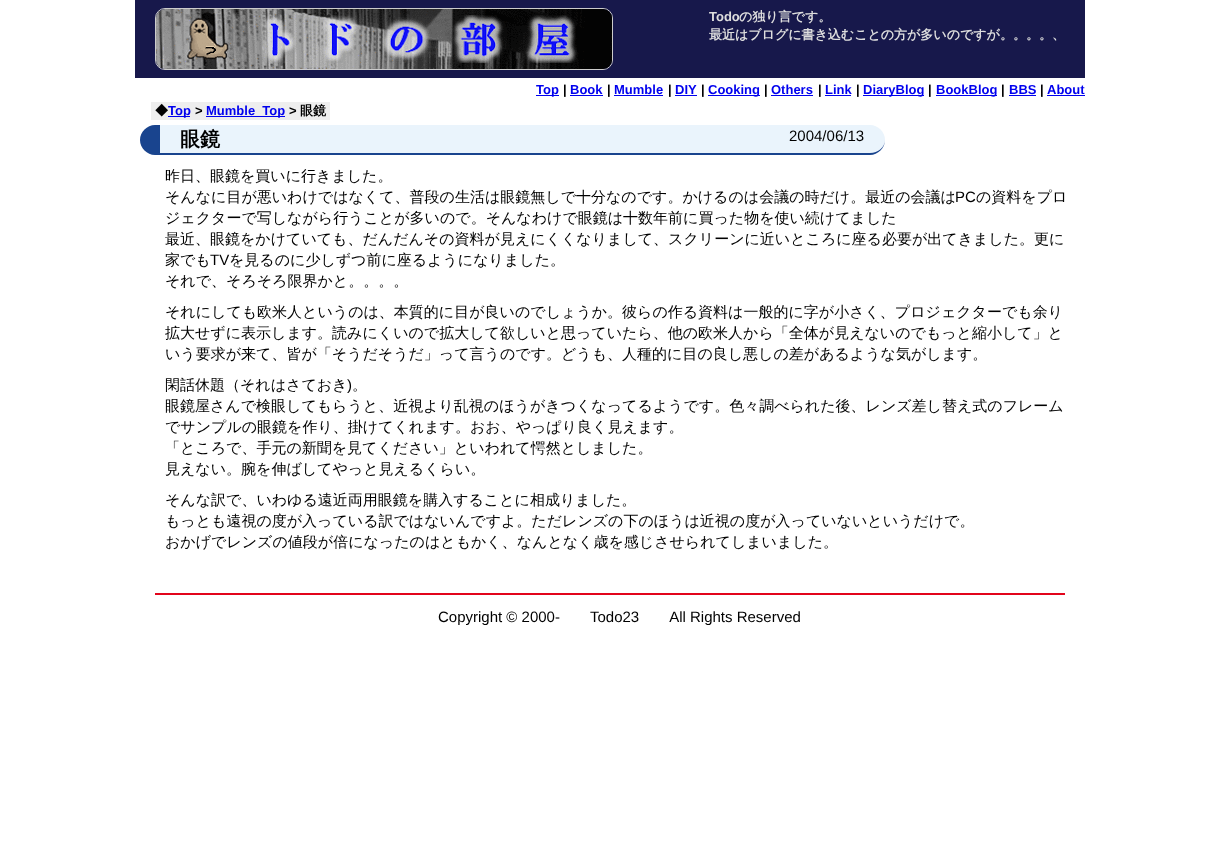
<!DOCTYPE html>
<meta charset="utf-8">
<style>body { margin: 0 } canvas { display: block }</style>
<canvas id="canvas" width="1219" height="848"></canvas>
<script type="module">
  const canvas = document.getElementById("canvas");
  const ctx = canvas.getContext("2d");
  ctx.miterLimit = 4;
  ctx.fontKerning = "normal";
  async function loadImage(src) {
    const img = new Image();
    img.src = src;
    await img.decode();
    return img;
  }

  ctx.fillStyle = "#ffffff";
  ctx.fillRect(0, 0, 1219, 848);
  ctx.fillStyle = "#17184b";
  ctx.fillRect(135, 0, 950, 78);
  ctx.beginPath();
  ctx.roundRect(155.5, 8.5, 457, 61, 9.5);
  ctx.strokeStyle = "#cccccc";
  ctx.stroke();
  ctx.drawImage(await loadImage("img1.png"), 156, 9, 456, 60);
  ctx.font = "bold 13px Liberation Sans";
  ctx.fillStyle = "#dddddd";
  ctx.fillText("Todo", 709, 21);
  ctx.font = "bold 13px WenQuanYi Zen Hei";
  ctx.fillText("の独り言です。", 739, 21);
  ctx.fillText("最近はブログに書き込むことの方が多いのですが。。。。、", 709, 39);
  ctx.fillStyle = "#0000ee";
  ctx.fillRect(536, 95, 23, 1);
  ctx.font = "bold 13px Liberation Sans";
  ctx.fillText("Top", 536, 94);
  ctx.fillStyle = "#000000";
  ctx.fillText("|", 563, 94);
  ctx.fillStyle = "#0000ee";
  ctx.fillText("Book", 570, 94);
  ctx.fillRect(570, 95, 33, 1);
  ctx.fillStyle = "#000000";
  ctx.fillText("|", 607, 94);
  ctx.fillStyle = "#0000ee";
  ctx.fillText("Mumble", 614, 94);
  ctx.fillRect(614, 95, 49, 1);
  ctx.fillStyle = "#000000";
  ctx.fillText("|", 668, 94);
  ctx.fillStyle = "#0000ee";
  ctx.fillText("DIY", 675, 94);
  ctx.fillRect(675, 95, 22, 1);
  ctx.fillStyle = "#000000";
  ctx.fillText("|", 701, 94);
  ctx.fillStyle = "#0000ee";
  ctx.fillRect(708, 95, 52, 1);
  ctx.fillText("Cooking", 708, 94);
  ctx.fillStyle = "#000000";
  ctx.fillText("|", 764, 94);
  ctx.fillStyle = "#0000ee";
  ctx.fillText("Others", 771, 94);
  ctx.fillRect(771, 95, 42, 1);
  ctx.fillStyle = "#000000";
  ctx.fillText("|", 818, 94);
  ctx.fillStyle = "#0000ee";
  ctx.fillText("Link", 825, 94);
  ctx.fillRect(825, 95, 26, 1);
  ctx.fillStyle = "#000000";
  ctx.fillText("|", 856, 94);
  ctx.fillStyle = "#0000ee";
  ctx.fillRect(863, 95, 61, 1);
  ctx.fillText("DiaryBlog", 863, 94);
  ctx.fillStyle = "#000000";
  ctx.fillText("|", 928, 94);
  ctx.fillStyle = "#0000ee";
  ctx.fillRect(936, 95, 61, 1);
  ctx.fillText("BookBlog", 936, 94);
  ctx.fillStyle = "#000000";
  ctx.fillText("|", 1001, 94);
  ctx.fillStyle = "#0000ee";
  ctx.fillText("BBS", 1009, 94);
  ctx.fillRect(1009, 95, 27, 1);
  ctx.fillStyle = "#000000";
  ctx.fillText("|", 1040, 94);
  ctx.fillStyle = "#0000ee";
  ctx.fillText("About", 1047, 94);
  ctx.fillRect(1047, 95, 38, 1);
  ctx.fillStyle = "#eeeeee";
  ctx.fillRect(151, 102, 179, 18);
  ctx.font = "bold 13px WenQuanYi Zen Hei";
  ctx.fillStyle = "#000000";
  ctx.fillText("◆", 155, 115);
  ctx.fillStyle = "#0000ee";
  ctx.fillRect(168, 116, 22, 1);
  ctx.font = "bold 13px Liberation Sans";
  ctx.fillText("Top", 168, 115);
  ctx.fillStyle = "#000000";
  ctx.fillText(">", 195, 115);
  ctx.fillStyle = "#0000ee";
  ctx.fillRect(206, 116, 79, 1);
  ctx.fillText("Mumble_Top", 206, 115);
  ctx.fillStyle = "#000000";
  ctx.fillText(">", 289, 115);
  ctx.font = "bold 13px WenQuanYi Zen Hei";
  ctx.fillText("眼鏡", 300, 115);
  ctx.fillStyle = "#eaf4fc";
  ctx.beginPath();
  ctx.moveTo(160, 125);
  ctx.lineTo(870, 125);
  ctx.bezierCurveTo(878, 125, 885, 132, 885, 140);
  ctx.bezierCurveTo(885, 147, 878, 153, 870, 153);
  ctx.lineTo(160, 153);
  ctx.closePath();
  ctx.fill();
  ctx.fillStyle = "#19448e";
  ctx.beginPath();
  ctx.moveTo(155, 125);
  ctx.lineTo(870, 125);
  ctx.bezierCurveTo(878, 125, 885, 132, 885, 140);
  ctx.bezierCurveTo(885, 148, 878, 155, 870, 155);
  ctx.lineTo(155, 155);
  ctx.bezierCurveTo(147, 155, 140, 148, 140, 140);
  ctx.bezierCurveTo(140, 132, 147, 125, 155, 125);
  ctx.closePath();
  ctx.moveTo(160, 125);
  ctx.lineTo(870, 125);
  ctx.bezierCurveTo(878, 125, 885, 132, 885, 140);
  ctx.bezierCurveTo(885, 147, 878, 153, 870, 153);
  ctx.lineTo(160, 153);
  ctx.closePath();
  ctx.fill("evenodd");
  ctx.font = "bold 20px WenQuanYi Zen Hei";
  ctx.fillStyle = "#000000";
  ctx.fillText("眼鏡", 180, 146);
  ctx.font = "15px Liberation Sans";
  ctx.fillText("2004/06/13", 789, 141);
  ctx.font = "500 15px WenQuanYi Zen Hei";
  ctx.fillText("昨日、眼鏡を買いに行きました。", 165, 181);
  ctx.fillText("そんなに目が悪いわけではなくて、普段の生活は眼鏡無しで十分なのです。かけるのは会議の時だけ。最近の会議は", 165, 202);
  ctx.font = "15px Liberation Sans";
  ctx.fillText("PC", 955, 202);
  ctx.font = "500 15px WenQuanYi Zen Hei";
  ctx.fillText("の資料をプロ", 976, 202);
  ctx.fillText("ジェクターで写しながら行うことが多いので。そんなわけで眼鏡は十数年前に買った物を使い続けてました", 165, 223);
  ctx.fillText("最近、眼鏡をかけていても、だんだんその資料が見えにくくなりまして、スクリーンに近いところに座る必要が出てきました。更に", 165, 244);
  ctx.fillText("家でも", 165, 265);
  ctx.font = "15px Liberation Sans";
  ctx.fillText("TV", 210, 265);
  ctx.font = "500 15px WenQuanYi Zen Hei";
  ctx.fillText("を見るのに少しずつ前に座るようになりました。", 229, 265);
  ctx.fillText("それで、そろそろ限界かと。。。。", 165, 286);
  ctx.fillText("それにしても欧米人というのは、本質的に目が良いのでしょうか。彼らの作る資料は一般的に字が小さく、プロジェクターでも余り", 165, 317);
  ctx.fillText("拡大せずに表示します。読みにくいので拡大して欲しいと思っていたら、他の欧米人から「全体が見えないのでもっと縮小して」と", 165, 338);
  ctx.fillText("いう要求が来て、皆が「そうだそうだ」って言うのです。どうも、人種的に目の良し悪しの差があるような気がします。", 165, 359);
  ctx.fillText("閑話休題（それはさておき", 165, 390);
  ctx.font = "15px Liberation Sans";
  ctx.fillText(")", 347, 390);
  ctx.font = "500 15px WenQuanYi Zen Hei";
  ctx.fillText("。", 352, 390);
  ctx.fillText("眼鏡屋さんで検眼してもらうと、近視より乱視のほうがきつくなってるようです。色々調べられた後、レンズ差し替え式のフレーム", 165, 411);
  ctx.fillText("でサンプルの眼鏡を作り、掛けてくれます。おお、やっぱり良く見えます。", 165, 432);
  ctx.fillText("「ところで、手元の新聞を見てください」といわれて愕然としました。", 165, 453);
  ctx.fillText("見えない。腕を伸ばしてやっと見えるくらい。", 165, 474);
  ctx.fillText("そんな訳で、いわゆる遠近両用眼鏡を購入することに相成りました。", 165, 505);
  ctx.fillText("もっとも遠視の度が入っている訳ではないんですよ。ただレンズの下のほうは近視の度が入っていないというだけで。", 165, 526);
  ctx.fillText("おかげでレンズの値段が倍になったのはともかく、なんとなく歳を感じさせられてしまいました。", 165, 547);
  ctx.fillStyle = "#e2041b";
  ctx.fillRect(155, 593, 910, 2);
  ctx.font = "15px Liberation Sans";
  ctx.fillStyle = "#000000";
  ctx.fillText("Copyright © 2000-  Todo23  All Rights Reserved", 438, 622);
</script>
